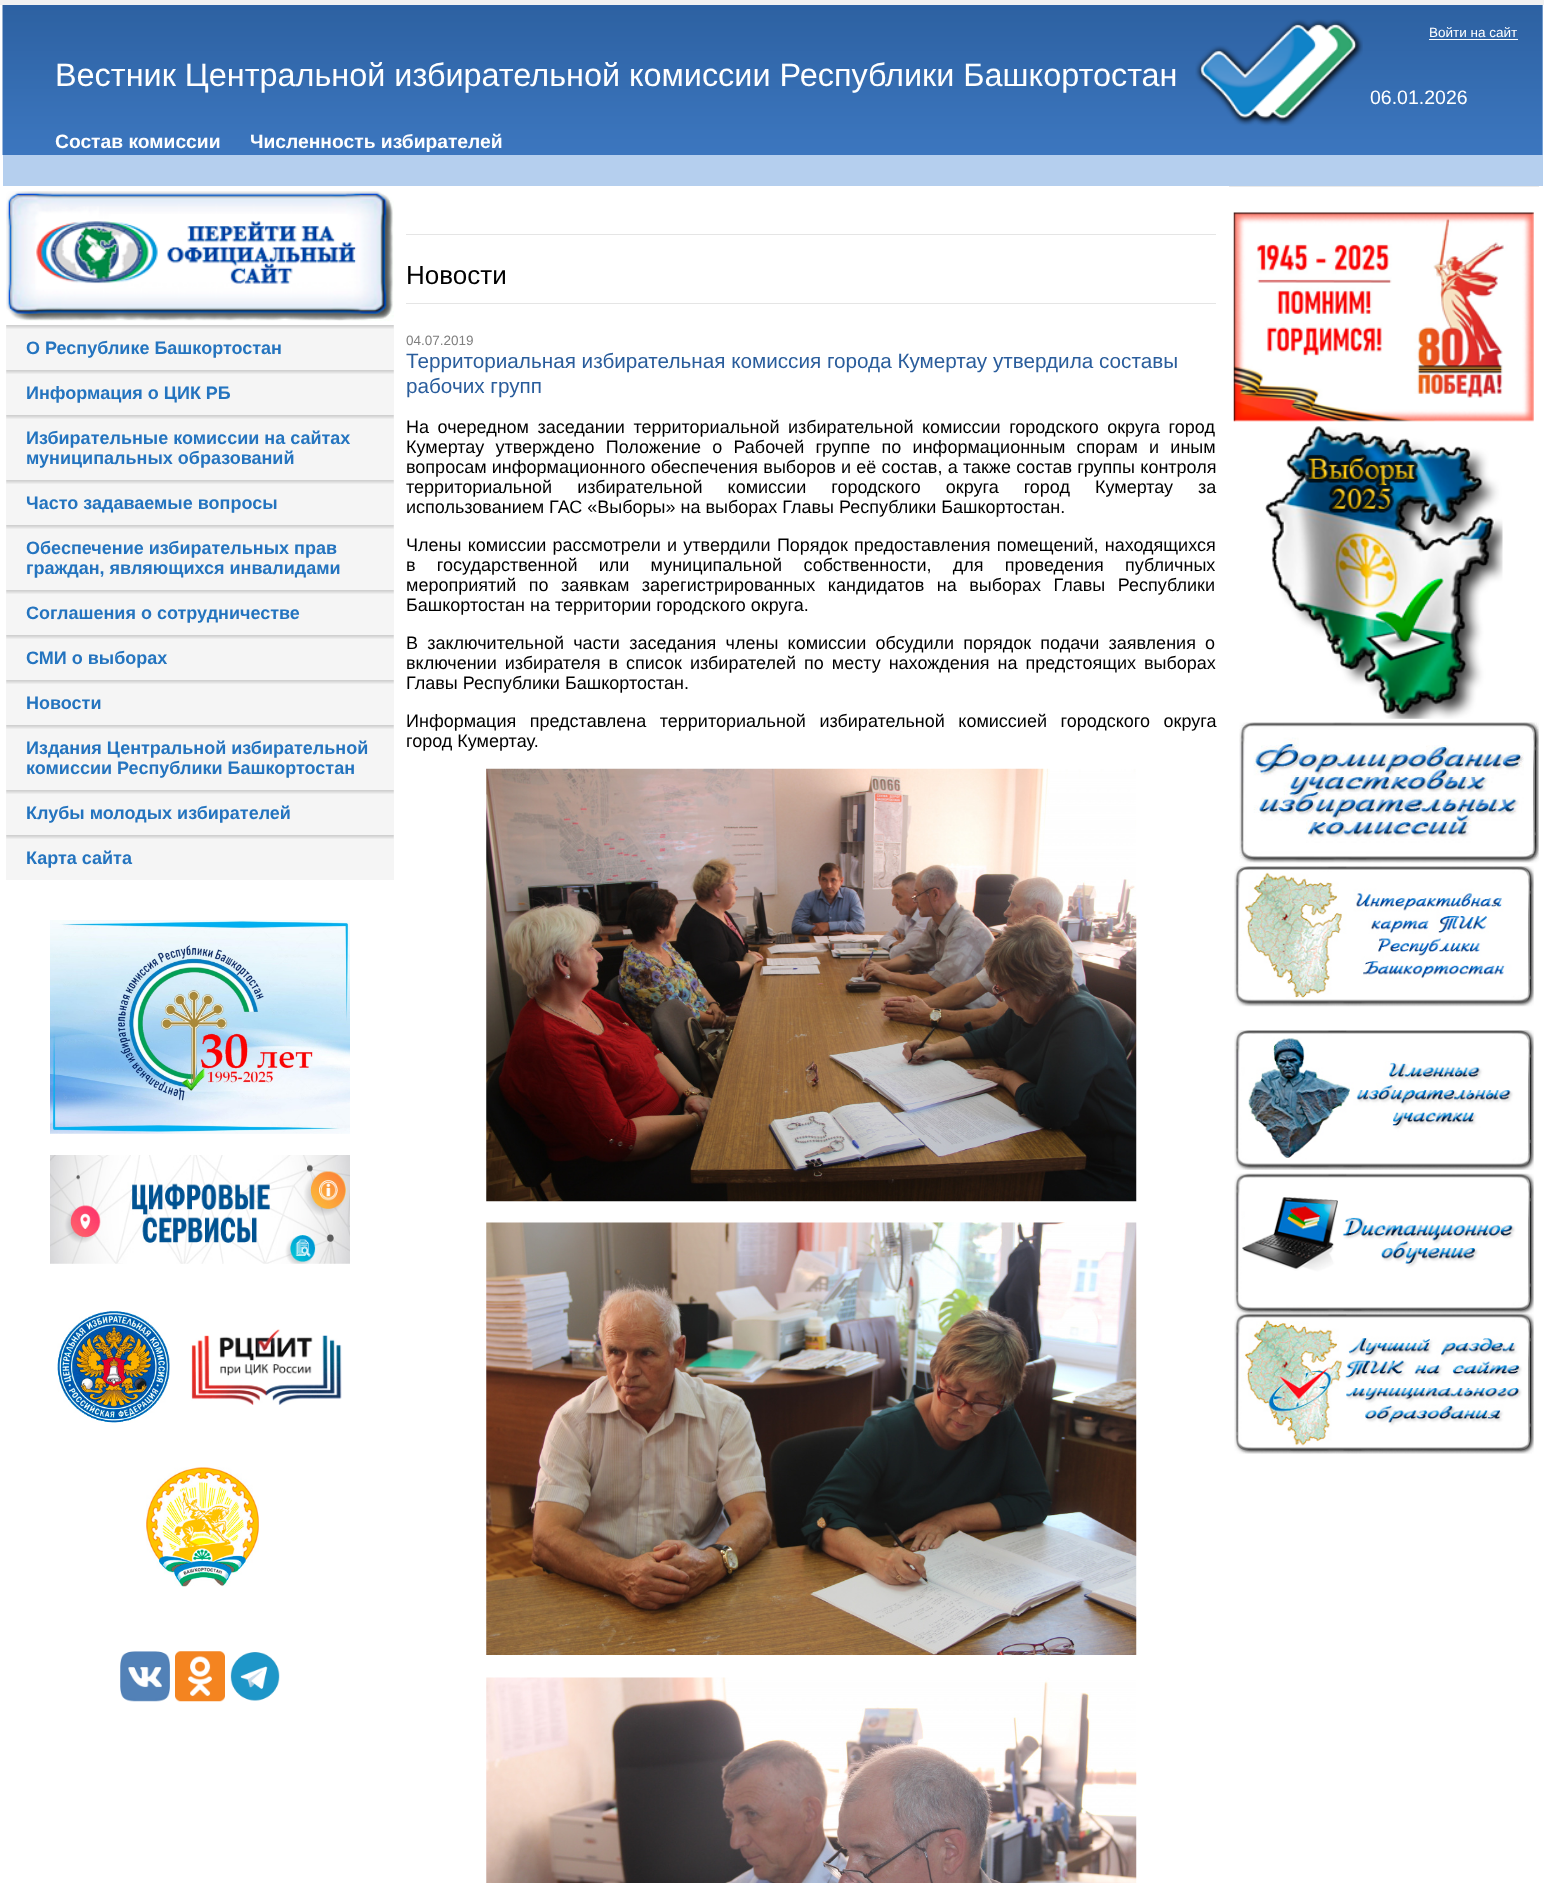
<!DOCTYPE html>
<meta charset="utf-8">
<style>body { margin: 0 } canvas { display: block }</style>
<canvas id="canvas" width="1544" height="1883"></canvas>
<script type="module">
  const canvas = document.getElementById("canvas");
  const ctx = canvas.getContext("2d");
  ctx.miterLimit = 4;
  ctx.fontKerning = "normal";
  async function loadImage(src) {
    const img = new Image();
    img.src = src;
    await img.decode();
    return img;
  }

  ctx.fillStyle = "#f1f1f1";
  ctx.fillRect(0, 0, 1544, 1883);
  ctx.fillStyle = "#ffffff";
  ctx.fillRect(0, 5, 1544, 1878);
  ctx.fillStyle = "#b5cfee";
  ctx.fillRect(3, 5, 1540, 181);
  ctx.drawImage(await loadImage("img1.png"), 2, 5, 1541, 150);
  ctx.font = "13.5px Liberation Sans";
  ctx.fillStyle = "#ffffff";
  ctx.fillText("Войти на сайт", 1429, 37);
  ctx.fillRect(1429, 39, 89, 1);
  ctx.font = "32.4px Liberation Sans";
  ctx.fillText("Вестник Центральной избирательной комиссии Республики Башкортостан", 55, 86);
  ctx.drawImage(await loadImage("img2.png"), 1195, 19, 168, 107);
  ctx.font = "19.5px Liberation Sans";
  ctx.fillText("06.01.2026", 1370, 104);
  ctx.font = "bold 19.25px Liberation Sans";
  ctx.fillText("Состав комиссии", 55, 148);
  ctx.fillText("Численность избирателей", 250, 148);
  ctx.drawImage(await loadImage("img3.png"), 6, 191, 388, 130);
  ctx.fillStyle = "#f5f5f5";
  ctx.fillRect(6, 325, 388, 555);
  ctx.drawImage(await loadImage("img4.png"), 6, 325, 388, 4);
  ctx.font = "bold 18px Liberation Sans";
  ctx.fillStyle = "#2474bf";
  ctx.fillText("О Республике Башкортостан", 26, 354);
  ctx.drawImage(await loadImage("img4.png"), 6, 370, 388, 4);
  ctx.fillText("Информация о ЦИК РБ", 26, 399);
  ctx.drawImage(await loadImage("img4.png"), 6, 415, 388, 4);
  ctx.fillText("Избирательные комиссии на сайтах", 26, 444);
  ctx.fillText("муниципальных образований", 26, 464);
  ctx.drawImage(await loadImage("img4.png"), 6, 480, 388, 4);
  ctx.fillText("Часто задаваемые вопросы", 26, 509);
  ctx.drawImage(await loadImage("img4.png"), 6, 525, 388, 4);
  ctx.fillText("Обеспечение избирательных прав", 26, 554);
  ctx.fillText("граждан, являющихся инвалидами", 26, 574);
  ctx.drawImage(await loadImage("img4.png"), 6, 590, 388, 4);
  ctx.fillText("Соглашения о сотрудничестве", 26, 619);
  ctx.drawImage(await loadImage("img4.png"), 6, 635, 388, 4);
  ctx.fillText("СМИ о выборах", 26, 664);
  ctx.drawImage(await loadImage("img4.png"), 6, 680, 388, 4);
  ctx.fillText("Новости", 26, 709);
  ctx.drawImage(await loadImage("img4.png"), 6, 725, 388, 4);
  ctx.fillText("Издания Центральной избирательной", 26, 754);
  ctx.fillText("комиссии Республики Башкортостан", 26, 774);
  ctx.drawImage(await loadImage("img4.png"), 6, 790, 388, 4);
  ctx.fillText("Клубы молодых избирателей", 26, 819);
  ctx.drawImage(await loadImage("img4.png"), 6, 835, 388, 4);
  ctx.fillText("Карта сайта", 26, 864);
  ctx.drawImage(await loadImage("img5.png"), 50, 920, 300, 214);
  ctx.drawImage(await loadImage("img6.png"), 50, 1155, 300, 109);
  ctx.drawImage(await loadImage("img7.png"), 57, 1311, 113, 112);
  ctx.drawImage(await loadImage("img8.png"), 191, 1329, 151, 76);
  ctx.drawImage(await loadImage("img9.png"), 146, 1467, 113, 120);
  ctx.drawImage(await loadImage("img10.png"), 120, 1651, 50, 51);
  ctx.drawImage(await loadImage("img11.png"), 175, 1651, 50, 51);
  ctx.drawImage(await loadImage("img12.png"), 230, 1652, 50, 49);
  ctx.fillStyle = "#e5e5e5";
  ctx.fillRect(406, 234, 810, 1);
  ctx.fillRect(406, 303, 810, 1);
  ctx.font = "26px Liberation Sans";
  ctx.fillStyle = "#000000";
  ctx.fillText("Новости", 406, 284);
  ctx.font = "13.5px Liberation Sans";
  ctx.fillStyle = "#7f7f7f";
  ctx.fillText("04.07.2019", 406, 345);
  ctx.font = "20.7px Liberation Sans";
  ctx.fillStyle = "#2a5d9c";
  ctx.fillText("Территориальная избирательная комиссия города Кумертау утвердила составы", 406, 368);
  ctx.fillText("рабочих групп", 406, 393);
  ctx.wordSpacing = "3.5px";
  ctx.font = "18px Liberation Sans";
  ctx.fillStyle = "#000000";
  ctx.fillText("На очередном заседании территориальной избирательной комиссии городского округа город", 406, 433);
  ctx.wordSpacing = "6.25px";
  ctx.fillText("Кумертау утверждено Положение о Рабочей группе по информационным спорам и иным", 406, 453);
  ctx.wordSpacing = "0.25px";
  ctx.fillText("вопросам информационного обеспечения выборов и её состав, а также состав группы контроля", 406, 473);
  ctx.wordSpacing = "20px";
  ctx.fillText("территориальной избирательной комиссии городского округа город Кумертау за", 406, 493);
  ctx.wordSpacing = "0px";
  ctx.fillText("использованием ГАС «Выборы» на выборах Главы Республики Башкортостан.", 406, 513);
  ctx.wordSpacing = "1.25px";
  ctx.fillText("Члены комиссии рассмотрели и утвердили Порядок предоставления помещений, находящихся", 406, 551);
  ctx.wordSpacing = "16.25px";
  ctx.fillText("в государственной или муниципальной собственности, для проведения публичных", 406, 571);
  ctx.wordSpacing = "7.5px";
  ctx.fillText("мероприятий по заявкам зарегистрированных кандидатов на выборах Главы Республики", 406, 591);
  ctx.wordSpacing = "0px";
  ctx.fillText("Башкортостан на территории городского округа.", 406, 611);
  ctx.wordSpacing = "4.25px";
  ctx.fillText("В заключительной части заседания члены комиссии обсудили порядок подачи заявления о", 406, 649);
  ctx.wordSpacing = "3px";
  ctx.fillText("включении избирателя в список избирателей по месту нахождения на предстоящих выборах", 406, 669);
  ctx.wordSpacing = "0px";
  ctx.fillText("Главы Республики Башкортостан.", 406, 689);
  ctx.wordSpacing = "8.5px";
  ctx.fillText("Информация представлена территориальной избирательной комиссией городского округа", 406, 727);
  ctx.wordSpacing = "0px";
  ctx.fillText("город Кумертау.", 406, 747);
  ctx.drawImage(await loadImage("img13.png"), 486, 768, 651, 434);
  ctx.drawImage(await loadImage("img14.png"), 486, 1222, 651, 433);
  ctx.drawImage(await loadImage("img15.png"), 486, 1677, 651, 206);
  ctx.fillStyle = "#e9e9e9";
  ctx.fillRect(1229, 186, 310, 1);
  ctx.drawImage(await loadImage("img16.png"), 1233, 212, 301, 210);
  ctx.drawImage(await loadImage("img17.png"), 1265, 426, 238, 293);
  ctx.drawImage(await loadImage("img18.png"), 1239, 722, 300, 141);
  ctx.drawImage(await loadImage("img19.png"), 1234, 866, 300, 141);
  ctx.drawImage(await loadImage("img20.png"), 1234, 1030, 300, 140);
  ctx.drawImage(await loadImage("img21.png"), 1234, 1173, 300, 141);
  ctx.drawImage(await loadImage("img22.png"), 1234, 1313, 300, 141);
</script>
